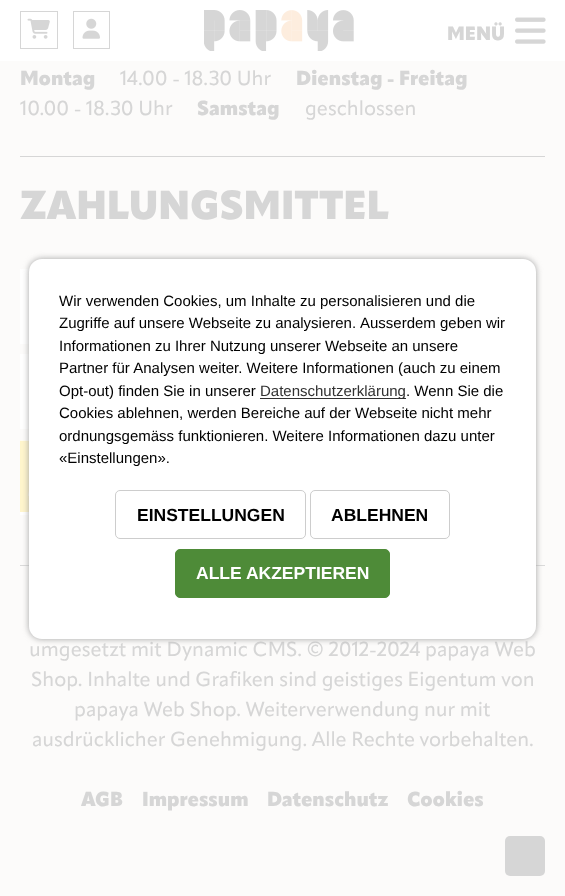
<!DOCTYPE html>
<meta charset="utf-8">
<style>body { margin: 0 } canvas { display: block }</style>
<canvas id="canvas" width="565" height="896"></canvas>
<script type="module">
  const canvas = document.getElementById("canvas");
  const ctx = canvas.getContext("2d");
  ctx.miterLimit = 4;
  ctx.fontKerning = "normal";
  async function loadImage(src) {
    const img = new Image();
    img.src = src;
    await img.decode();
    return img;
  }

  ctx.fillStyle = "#fcfbfa";
  ctx.fillRect(0, 0, 565, 896);
  ctx.fillStyle = "#ffffff";
  ctx.fillRect(0, 0, 565, 61);
  ctx.strokeStyle = "#d6d6d6";
  ctx.strokeRect(20.5, 11.5, 37, 37);
  ctx.drawImage(await loadImage("img1.png"), 27, 18, 23, 21);
  ctx.strokeRect(73.5, 11.5, 36, 37);
  ctx.drawImage(await loadImage("img2.png"), 82, 18, 18, 21);
  ctx.drawImage(await loadImage("img3.png"), 204, 10, 150, 41);
  ctx.font = "900 19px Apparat";
  ctx.fillStyle = "#d6d6d6";
  ctx.fillText("MENÜ", 447, 40);
  ctx.drawImage(await loadImage("img4.png"), 515, 17, 31, 27);
  ctx.font = "900 20px Apparat";
  ctx.fillText("Montag", 20, 85);
  ctx.font = "500 20px Apparat";
  ctx.fillText("14.00 - 18.30 Uhr", 120, 85);
  ctx.font = "900 20px Apparat";
  ctx.fillText("Dienstag - Freitag", 296, 85);
  ctx.font = "500 20px Apparat";
  ctx.fillText("10.00 - 18.30 Uhr", 20, 115);
  ctx.font = "900 20px Apparat";
  ctx.fillText("Samstag", 197, 115);
  ctx.font = "500 20px Apparat";
  ctx.fillText("geschlossen", 305, 115);
  ctx.fillRect(20, 156, 525, 1);
  ctx.font = "900 40px Apparat";
  ctx.fillText("ZAHLUNGSMITTEL", 20, 219);
  ctx.fillStyle = "#ffffff";
  ctx.fillRect(20, 269, 10, 75);
  ctx.fillRect(20, 354, 9, 75);
  ctx.fillRect(20, 440, 9, 75);
  ctx.drawImage(await loadImage("img5.png"), 20, 440, 9, 72);
  ctx.fillStyle = "#dadada";
  ctx.fillRect(20, 565, 525, 1);
  ctx.font = "500 20px Apparat";
  ctx.fillStyle = "#d6d6d6";
  ctx.fillText("umgesetzt mit Dynamic CMS. © 2012-2024 papaya Web", 29, 656);
  ctx.fillText("Shop. Inhalte und Grafiken sind geistiges Eigentum von", 31, 686);
  ctx.fillText("papaya Web Shop. Weiterverwendung nur mit", 74, 716);
  ctx.fillText("ausdrücklicher Genehmigung. Alle Rechte vorbehalten.", 32, 746);
  ctx.font = "900 20px Apparat";
  ctx.fillText("AGB", 81, 806);
  ctx.fillText("Impressum", 142, 806);
  ctx.fillText("Datenschutz", 267, 806);
  ctx.fillText("Cookies", 407, 806);
  ctx.fillStyle = "#a2a2a2";
  ctx.filter = "blur(3px)";
  ctx.beginPath();
  ctx.roundRect(29, 259, 507, 380, 13);
  ctx.fill();
  ctx.filter = "none";
  ctx.fillStyle = "#ffffff";
  ctx.beginPath();
  ctx.roundRect(29, 259, 507, 380, 13);
  ctx.fill();
  ctx.font = "15px Liberation Sans";
  ctx.fillStyle = "#000000";
  ctx.fillText("Wir verwenden Cookies, um Inhalte zu personalisieren und die", 59, 306);
  ctx.fillText("Zugriffe auf unsere Webseite zu analysieren.", 59, 328);
  ctx.fillText("Ausserdem geben wir", 360, 328);
  ctx.fillText("Informationen zu Ihrer Nutzung unserer Webseite an unsere", 59, 351);
  ctx.fillText("Partner für Analysen weiter. Weitere Informationen (auch zu einem", 59, 373);
  ctx.fillText("Opt-out) finden Sie in unserer", 59, 396);
  ctx.fillStyle = "#313131";
  ctx.fillRect(260, 398, 146, 1);
  ctx.fillText("Datenschutzerklärung", 260, 396);
  ctx.fillStyle = "#000000";
  ctx.fillText(". Wenn Sie die", 406, 396);
  ctx.fillText("Cookies ablehnen, werden Bereiche auf der Webseite nicht mehr", 59, 418);
  ctx.fillText("ordnungsgemäss funktionieren. Weitere Informationen dazu unter", 59, 441);
  ctx.fillText("«Einstellungen».", 59, 463);
  ctx.beginPath();
  ctx.roundRect(115.5, 490.5, 190, 48, 4.5);
  ctx.strokeStyle = "#cdcdcd";
  ctx.stroke();
  ctx.font = "bold 17.5px Liberation Sans";
  ctx.fillText("EINSTELLUNGEN", 137, 521);
  ctx.beginPath();
  ctx.roundRect(310.5, 490.5, 139, 48, 4.5);
  ctx.stroke();
  ctx.fillText("ABLEHNEN", 331, 521);
  ctx.fillStyle = "#4e8b38";
  ctx.beginPath();
  ctx.roundRect(175.5, 549.5, 214, 48, 4.5);
  ctx.fill();
  ctx.strokeStyle = "#4e8b38";
  ctx.stroke();
  ctx.fillStyle = "#ffffff";
  ctx.fillText("ALLE AKZEPTIEREN", 196, 579);
  ctx.fillStyle = "#d6d6d6";
  ctx.beginPath();
  ctx.roundRect(505, 836, 40, 40, 5);
  ctx.fill();
</script>
